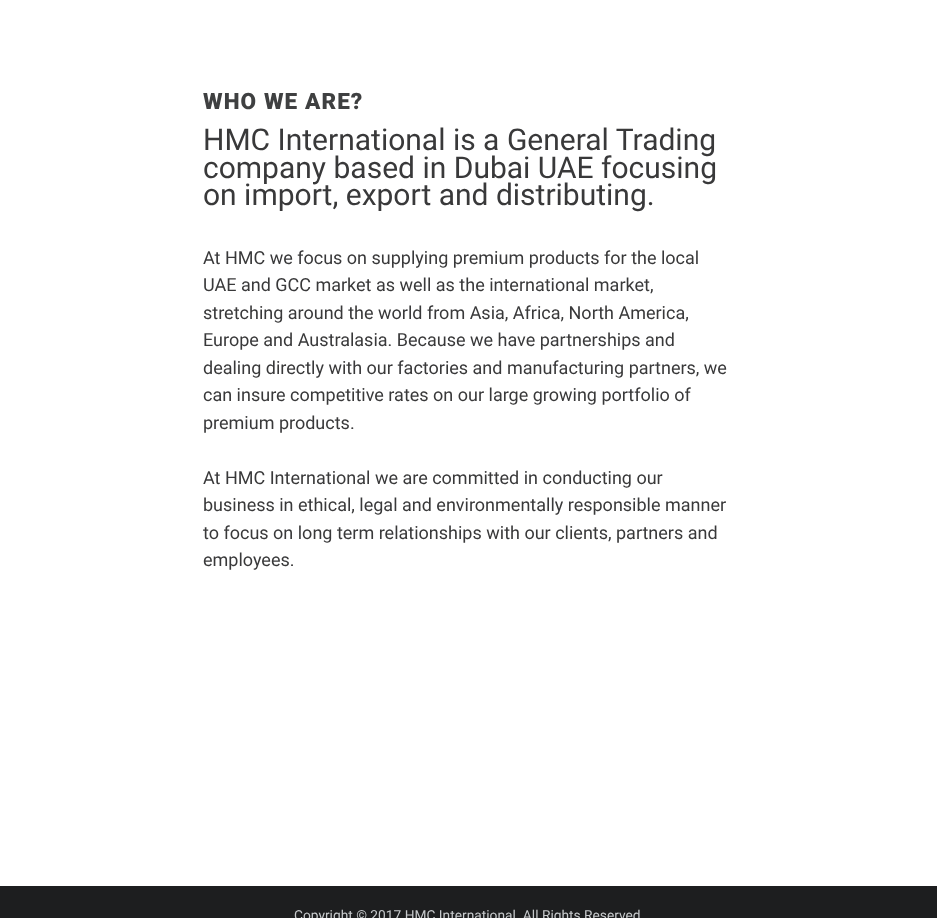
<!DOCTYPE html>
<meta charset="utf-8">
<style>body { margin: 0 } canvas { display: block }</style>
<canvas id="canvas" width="937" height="918"></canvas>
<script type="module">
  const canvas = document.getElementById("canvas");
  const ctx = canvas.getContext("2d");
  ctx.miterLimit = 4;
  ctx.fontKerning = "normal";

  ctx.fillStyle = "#ffffff";
  ctx.fillRect(0, 0, 937, 918);
  ctx.letterSpacing = "1.1px";
  ctx.font = "900 22.5px Roboto";
  ctx.fillStyle = "#3f4041";
  ctx.fillText("WHO WE ARE?", 203, 109);
  ctx.letterSpacing = "0px";
  ctx.font = "30px Roboto";
  ctx.fillStyle = "#39393a";
  ctx.fillText("HMC International is a General Trading", 203, 150);
  ctx.fillText("company based in Dubai UAE focusing", 203, 178);
  ctx.fillText("on import, export and distributing.", 203, 205);
  ctx.font = "18px Roboto";
  ctx.fillText("At HMC we focus on supplying premium products for the local", 203, 264);
  ctx.fillText("UAE and GCC market as well as the international market,", 203, 291);
  ctx.fillText("stretching around the world from Asia, Africa, North America,", 203, 319);
  ctx.fillText("Europe and Australasia. Because we have partnerships and", 203, 346);
  ctx.fillText("dealing directly with our factories and manufacturing partners, we", 203, 374);
  ctx.fillText("can insure competitive rates on our large growing portfolio of", 203, 401);
  ctx.fillText("premium products.", 203, 429);
  ctx.fillText("At HMC International we are committed in conducting our", 203, 484);
  ctx.fillText("business in ethical, legal and environmentally responsible manner", 203, 511);
  ctx.fillText("to focus on long term relationships with our clients, partners and", 203, 539);
  ctx.fillText("employees.", 203, 566);
  ctx.fillStyle = "#1d1e1f";
  ctx.fillRect(0, 886, 937, 32);
  ctx.font = "13.75px Roboto";
  ctx.fillStyle = "#c7cacc";
  ctx.fillText("Copyright © 2017 HMC International. All Rights Reserved", 294, 920);
</script>
